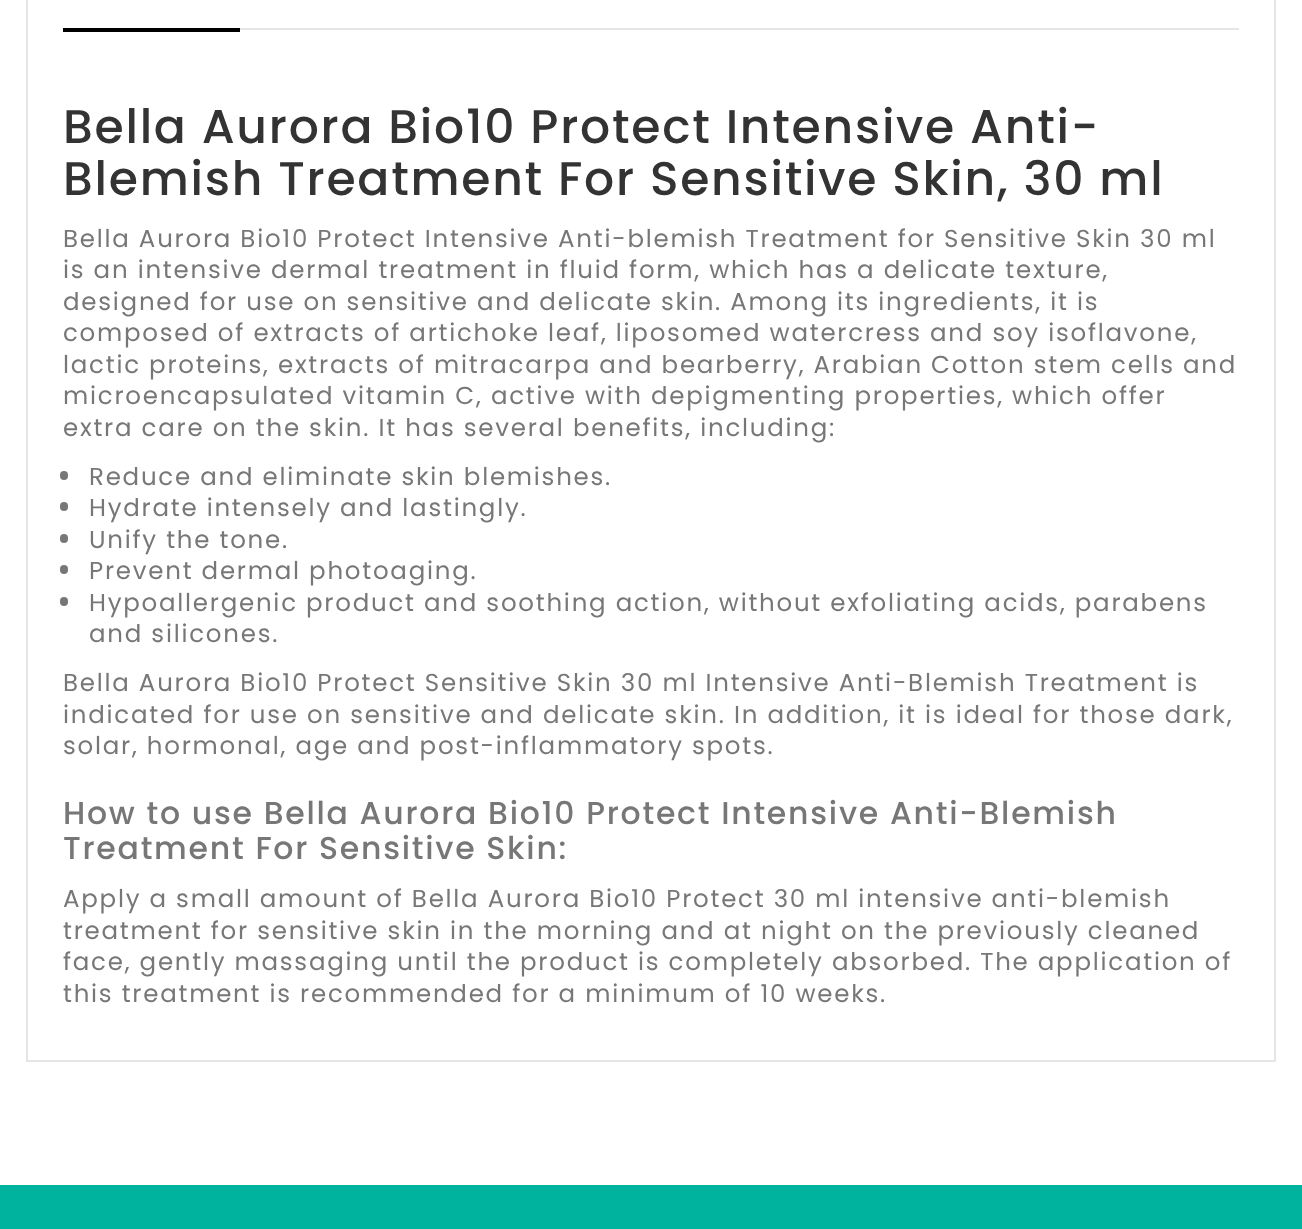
<!DOCTYPE html>
<meta charset="utf-8">
<style>body { margin: 0 } canvas { display: block }</style>
<canvas id="canvas" width="1302" height="1229"></canvas>
<script type="module">
  const canvas = document.getElementById("canvas");
  const ctx = canvas.getContext("2d");
  ctx.miterLimit = 4;
  ctx.fontKerning = "normal";

  ctx.fillStyle = "#ffffff";
  ctx.fillRect(0, 0, 1302, 1229);
  ctx.strokeStyle = "#e5e5e5";
  ctx.lineWidth = 2;
  ctx.strokeRect(27, -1, 1248, 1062);
  ctx.fillStyle = "#e5e5e5";
  ctx.fillRect(240, 28, 999, 2);
  ctx.fillStyle = "#000000";
  ctx.fillRect(63, 28, 177, 4);
  ctx.letterSpacing = "1.75px";
  ctx.font = "500 47.25px Poppins";
  ctx.fillStyle = "#333333";
  ctx.fillText("Bella Aurora Bio10 Protect Intensive Anti-", 63, 143);
  ctx.fillText("Blemish Treatment For Sensitive Skin, 30 ml", 63, 195);
  ctx.font = "24.5px Poppins";
  ctx.fillStyle = "#777777";
  ctx.fillText("Bella Aurora Bio10 Protect Intensive Anti-blemish Treatment for Sensitive Skin 30 ml", 63, 247);
  ctx.fillText("is an intensive dermal treatment in fluid form, which has a delicate texture,", 63, 278);
  ctx.fillText("designed for use on sensitive and delicate skin. Among its ingredients, it is", 63, 310);
  ctx.fillText("composed of extracts of artichoke leaf, liposomed watercress and soy isoflavone,", 63, 341);
  ctx.fillText("lactic proteins, extracts of mitracarpa and bearberry, Arabian Cotton stem cells and", 63, 373);
  ctx.fillText("microencapsulated vitamin C, active with depigmenting properties, which offer", 63, 404);
  ctx.fillText("extra care on the skin. It has several benefits, including:", 63, 436);
  ctx.beginPath();
  ctx.roundRect(60, 471, 8, 9, 4);
  ctx.fill();
  ctx.fillText("Reduce and eliminate skin blemishes.", 89, 485);
  ctx.beginPath();
  ctx.roundRect(60, 502, 8, 9, 4);
  ctx.fill();
  ctx.fillText("Hydrate intensely and lastingly.", 89, 516);
  ctx.beginPath();
  ctx.roundRect(60, 534, 8, 9, 4);
  ctx.fill();
  ctx.fillText("Unify the tone.", 89, 548);
  ctx.beginPath();
  ctx.roundRect(60, 565, 8, 9, 4);
  ctx.fill();
  ctx.fillText("Prevent dermal photoaging.", 89, 579);
  ctx.beginPath();
  ctx.roundRect(60, 597, 8, 9, 4);
  ctx.fill();
  ctx.fillText("Hypoallergenic product and soothing action, without exfoliating acids, parabens", 89, 611);
  ctx.fillText("and silicones.", 89, 642);
  ctx.fillText("Bella Aurora Bio10 Protect Sensitive Skin 30 ml Intensive Anti-Blemish Treatment is", 63, 691);
  ctx.fillText("indicated for use on sensitive and delicate skin. In addition, it is ideal for those dark,", 63, 723);
  ctx.fillText("solar, hormonal, age and post-inflammatory spots.", 63, 754);
  ctx.font = "500 31.5px Poppins";
  ctx.fillText("How to use Bella Aurora Bio10 Protect Intensive Anti-Blemish", 63, 824);
  ctx.fillText("Treatment For Sensitive Skin:", 63, 859);
  ctx.font = "24.5px Poppins";
  ctx.fillText("Apply a small amount of Bella Aurora Bio10 Protect 30 ml intensive anti-blemish", 63, 907);
  ctx.fillText("treatment for sensitive skin in the morning and at night on the previously cleaned", 63, 939);
  ctx.fillText("face, gently massaging until the product is completely absorbed. The application of", 63, 970);
  ctx.fillText("this treatment is recommended for a minimum of 10 weeks.", 63, 1002);
  ctx.fillStyle = "#00b39f";
  ctx.fillRect(0, 1185, 1302, 44);
</script>
